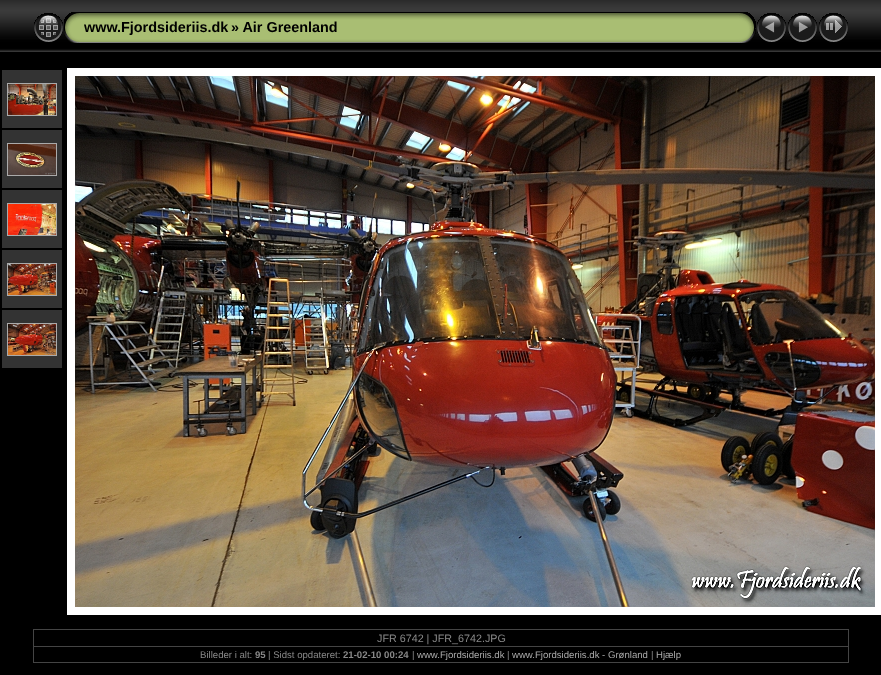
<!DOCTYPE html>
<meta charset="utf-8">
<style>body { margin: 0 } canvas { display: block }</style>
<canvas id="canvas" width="881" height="675"></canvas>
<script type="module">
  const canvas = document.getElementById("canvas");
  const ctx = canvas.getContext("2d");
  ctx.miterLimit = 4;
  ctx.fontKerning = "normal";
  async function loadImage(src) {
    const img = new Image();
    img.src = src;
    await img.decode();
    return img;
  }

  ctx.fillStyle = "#000000";
  ctx.fillRect(0, 0, 881, 675);
  ctx.drawImage(await loadImage("img1.png"), 0, 0, 881, 52);
  ctx.drawImage(await loadImage("img2.png"), 34, 13, 29, 29);
  ctx.drawImage(await loadImage("img3.png"), 64, 12, 20, 31);
  ctx.drawImage(await loadImage("img4.png"), 84, 12, 652, 31);
  ctx.font = "bold 14.4px Liberation Sans";
  ctx.fillText("www.Fjordsideriis.dk", 84, 32);
  ctx.fillText("» Air Greenland", 231, 32);
  ctx.drawImage(await loadImage("img5.png"), 736, 12, 20, 31);
  ctx.drawImage(await loadImage("img6.png"), 757, 13, 29, 29);
  ctx.drawImage(await loadImage("img7.png"), 788, 13, 29, 29);
  ctx.drawImage(await loadImage("img8.png"), 819, 13, 29, 29);
  ctx.fillStyle = "#333333";
  ctx.fillRect(2, 70, 60, 58);
  ctx.strokeStyle = "#aaaaaa";
  ctx.strokeRect(7.5, 83.5, 49, 32);
  ctx.drawImage(await loadImage("img9.png"), 8, 84, 48, 31);
  ctx.fillRect(2, 130, 60, 58);
  ctx.strokeRect(7.5, 143.5, 49, 32);
  ctx.drawImage(await loadImage("img10.png"), 8, 144, 48, 31);
  ctx.fillRect(2, 190, 60, 58);
  ctx.strokeRect(7.5, 203.5, 49, 32);
  ctx.drawImage(await loadImage("img11.png"), 8, 204, 48, 31);
  ctx.fillRect(2, 250, 60, 58);
  ctx.strokeRect(7.5, 263.5, 49, 32);
  ctx.drawImage(await loadImage("img12.png"), 8, 264, 48, 31);
  ctx.fillRect(2, 310, 60, 58);
  ctx.strokeRect(7.5, 323.5, 49, 32);
  ctx.drawImage(await loadImage("img13.png"), 8, 324, 48, 31);
  ctx.strokeStyle = "#ffffff";
  ctx.lineWidth = 8;
  ctx.strokeRect(71, 72, 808, 539);
  ctx.drawImage(await loadImage("img14.png"), 75, 76, 800, 531);
  ctx.fillStyle = "#444444";
  ctx.fillRect(33, 629, 816, 1);
  ctx.fillRect(848, 629, 1, 34);
  ctx.fillRect(33, 662, 816, 1);
  ctx.fillRect(33, 629, 1, 34);
  ctx.font = "10.75px Liberation Sans";
  ctx.fillStyle = "#888888";
  ctx.fillText("JFR 6742 | JFR_6742.JPG", 377, 642);
  ctx.fillStyle = "#444444";
  ctx.fillRect(33, 646, 816, 1);
  ctx.font = "9.6px Liberation Sans";
  ctx.fillStyle = "#888888";
  ctx.fillText("Billeder i alt:", 200, 658);
  ctx.font = "bold 9.6px Liberation Sans";
  ctx.fillText("95", 255, 658);
  ctx.font = "9.6px Liberation Sans";
  ctx.fillText("| Sidst opdateret:", 268, 658);
  ctx.font = "bold 9.6px Liberation Sans";
  ctx.fillText("21-02-10 00:24", 343, 658);
  ctx.font = "9.6px Liberation Sans";
  ctx.fillText("|", 412, 658);
  ctx.fillStyle = "#aaaaaa";
  ctx.fillText("www.Fjordsideriis.dk", 417, 658);
  ctx.fillStyle = "#888888";
  ctx.fillText("|", 507, 658);
  ctx.fillStyle = "#aaaaaa";
  ctx.fillText("www.Fjordsideriis.dk - Grønland", 512, 658);
  ctx.fillStyle = "#888888";
  ctx.fillText("|", 651, 658);
  ctx.fillStyle = "#aaaaaa";
  ctx.fillText("Hjælp", 656, 658);
</script>
